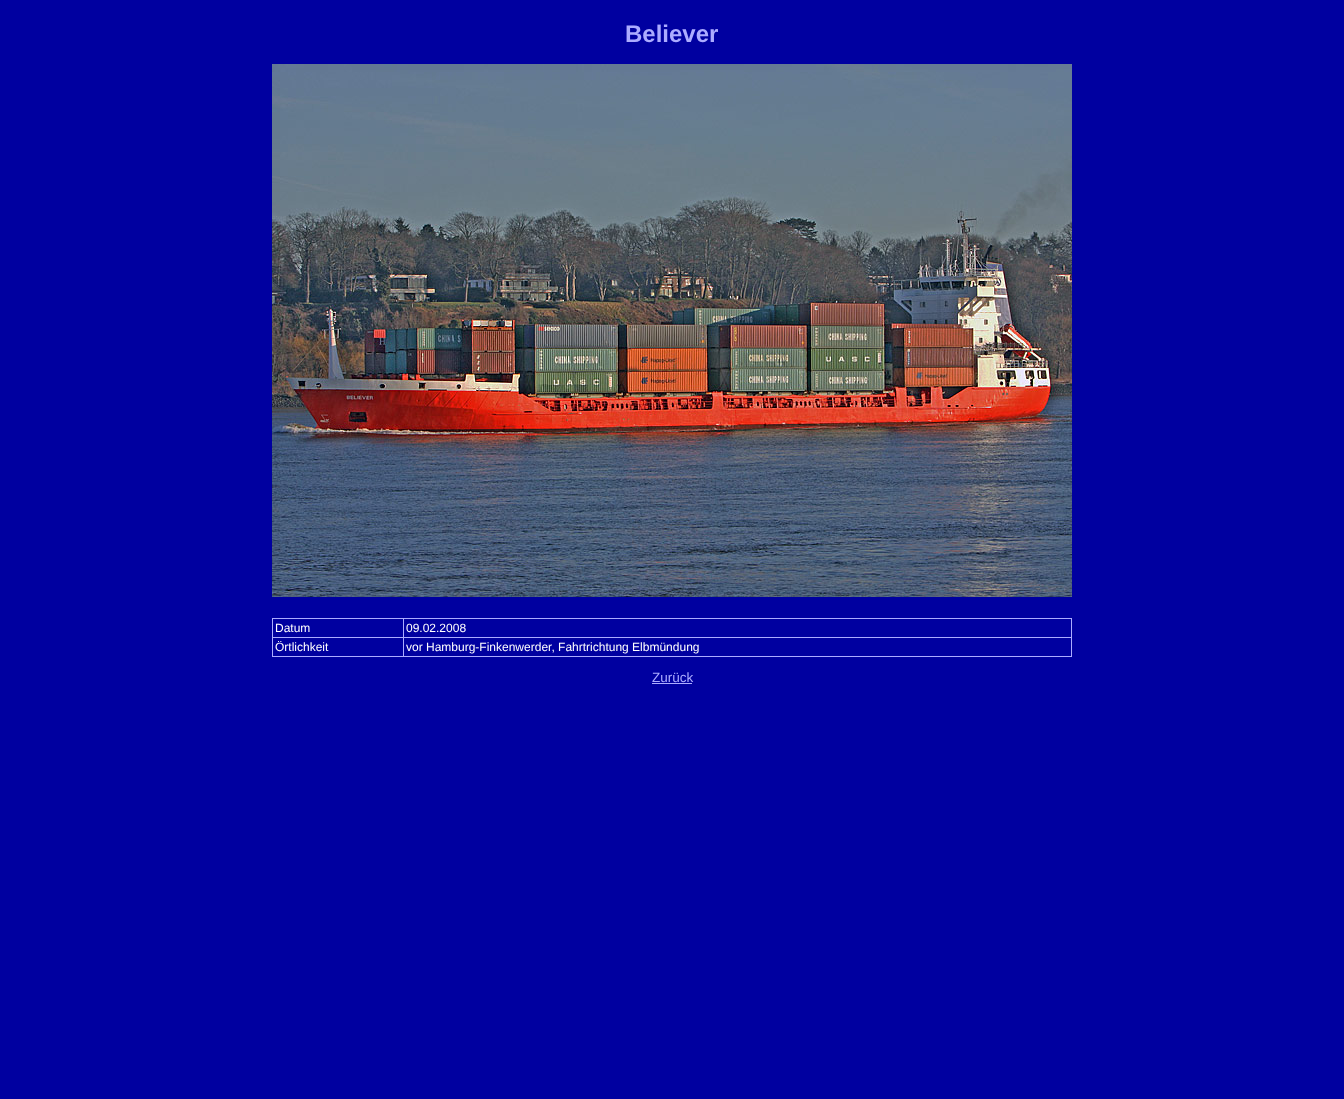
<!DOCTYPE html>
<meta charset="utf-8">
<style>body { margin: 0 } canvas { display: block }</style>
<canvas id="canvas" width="1344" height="1099"></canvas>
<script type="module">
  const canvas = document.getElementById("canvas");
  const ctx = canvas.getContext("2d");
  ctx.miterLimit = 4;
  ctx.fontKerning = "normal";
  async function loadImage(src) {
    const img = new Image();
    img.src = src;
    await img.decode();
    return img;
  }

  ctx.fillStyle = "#0000a0";
  ctx.fillRect(0, 0, 1344, 1099);
  ctx.font = "bold 24px Liberation Sans";
  ctx.fillStyle = "#acacff";
  ctx.fillText("Believer", 625, 42);
  ctx.drawImage(await loadImage("img1.png"), 272, 64, 800, 533);
  ctx.fillRect(403, 618, 669, 1);
  ctx.fillRect(403, 637, 669, 1);
  ctx.fillRect(1071, 637, 1, 20);
  ctx.fillRect(403, 656, 669, 1);
  ctx.fillRect(403, 637, 1, 20);
  ctx.fillRect(272, 637, 132, 1);
  ctx.fillRect(403, 618, 1, 20);
  ctx.fillRect(272, 618, 132, 1);
  ctx.fillRect(272, 656, 132, 1);
  ctx.fillRect(272, 637, 1, 20);
  ctx.fillRect(272, 618, 1, 20);
  ctx.font = "12px Liberation Sans";
  ctx.fillStyle = "#ffffff";
  ctx.fillText("Datum", 275, 632);
  ctx.fillStyle = "#acacff";
  ctx.fillRect(1071, 618, 1, 20);
  ctx.fillStyle = "#ffffff";
  ctx.fillText("09.02.2008", 406, 632);
  ctx.fillText("Örtlichkeit", 275, 651);
  ctx.fillText("vor Hamburg-Finkenwerder, Fahrtrichtung Elbmündung", 406, 651);
  ctx.font = "13.5px Liberation Sans";
  ctx.fillStyle = "#acacff";
  ctx.fillText("Zurück", 652, 682);
  ctx.fillRect(652, 683, 40, 1);
</script>
